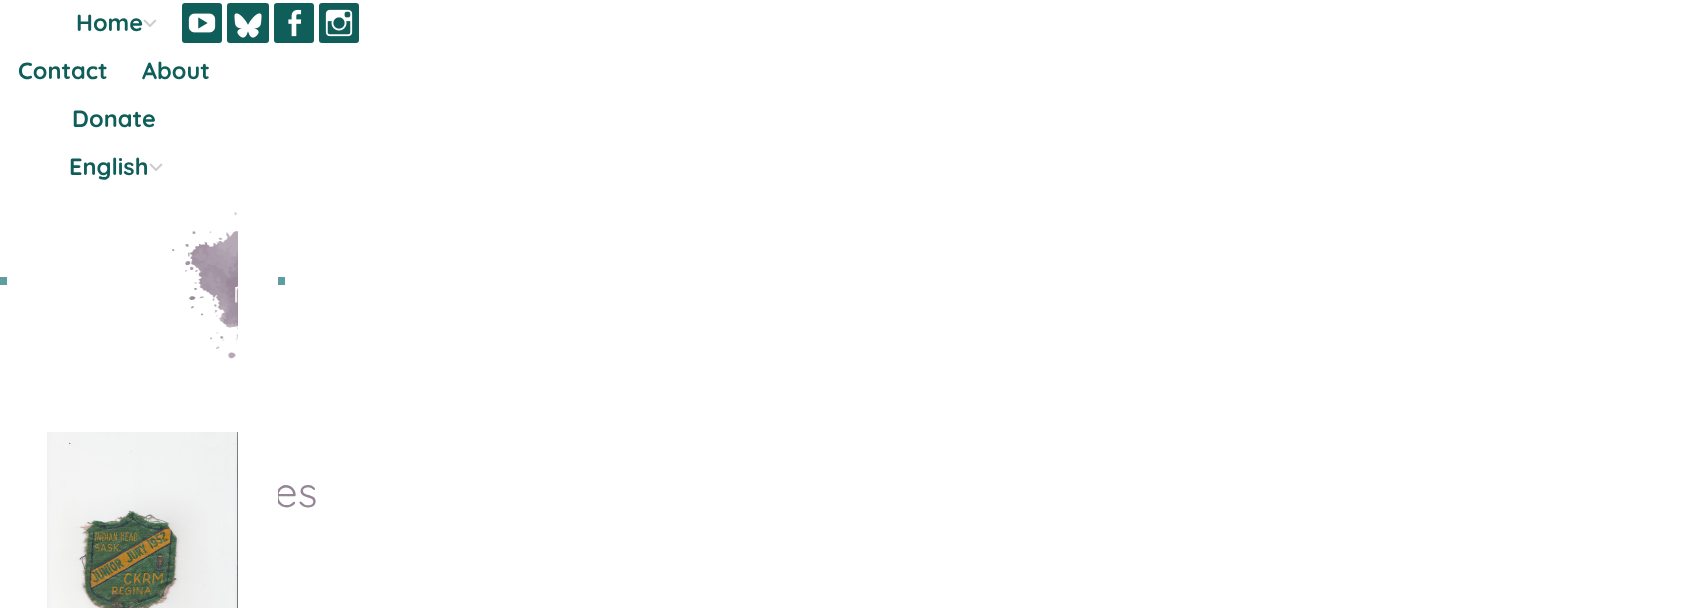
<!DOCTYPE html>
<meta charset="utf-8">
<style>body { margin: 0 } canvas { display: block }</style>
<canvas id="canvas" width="1682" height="608"></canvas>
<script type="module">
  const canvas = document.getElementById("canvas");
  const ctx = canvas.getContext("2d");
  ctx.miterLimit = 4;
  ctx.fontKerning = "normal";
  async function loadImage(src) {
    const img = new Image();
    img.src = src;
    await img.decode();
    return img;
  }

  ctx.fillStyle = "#ffffff";
  ctx.fillRect(0, 0, 1682, 608);
  ctx.fillStyle = "#5f9ea0";
  ctx.fillRect(0, 277, 285, 8);
  ctx.fillStyle = "#ffffff";
  ctx.fillRect(7, 277, 271, 8);
  ctx.font = "bold 23.5px Quicksand";
  ctx.fillStyle = "#0f5e5a";
  ctx.fillText("Home", 76, 31);
  ctx.drawImage(await loadImage("img1.png"), 143, 19, 14, 9);
  ctx.fillText("Contact", 18, 79);
  ctx.fillText("About", 142, 79);
  ctx.fillText("Donate", 72, 127);
  ctx.fillText("English", 69, 175);
  ctx.drawImage(await loadImage("img1.png"), 149, 163, 14, 9);
  ctx.beginPath();
  ctx.roundRect(182, 3, 40, 40, 3);
  ctx.fill();
  ctx.drawImage(await loadImage("img2.png"), 188, 13, 28, 20);
  ctx.beginPath();
  ctx.roundRect(227, 3, 42, 40, 3);
  ctx.fill();
  ctx.drawImage(await loadImage("img3.png"), 234, 13, 28, 25);
  ctx.beginPath();
  ctx.roundRect(274, 3, 40, 40, 3);
  ctx.fill();
  ctx.drawImage(await loadImage("img4.png"), 288, 9, 14, 28);
  ctx.beginPath();
  ctx.roundRect(319, 3, 40, 40, 3);
  ctx.fill();
  ctx.drawImage(await loadImage("img5.png"), 325, 9, 28, 28);
  ctx.drawImage(await loadImage("img6.png"), 172, 212, 66, 147);
  ctx.font = "42px Quicksand";
  ctx.fillStyle = "#968596";
  ctx.fillText("es", 274, 507);
  ctx.fillStyle = "#ffffff";
  ctx.fillRect(275, 489, 3, 15);
  ctx.drawImage(await loadImage("img7.png"), 47, 432, 191, 176);
</script>
